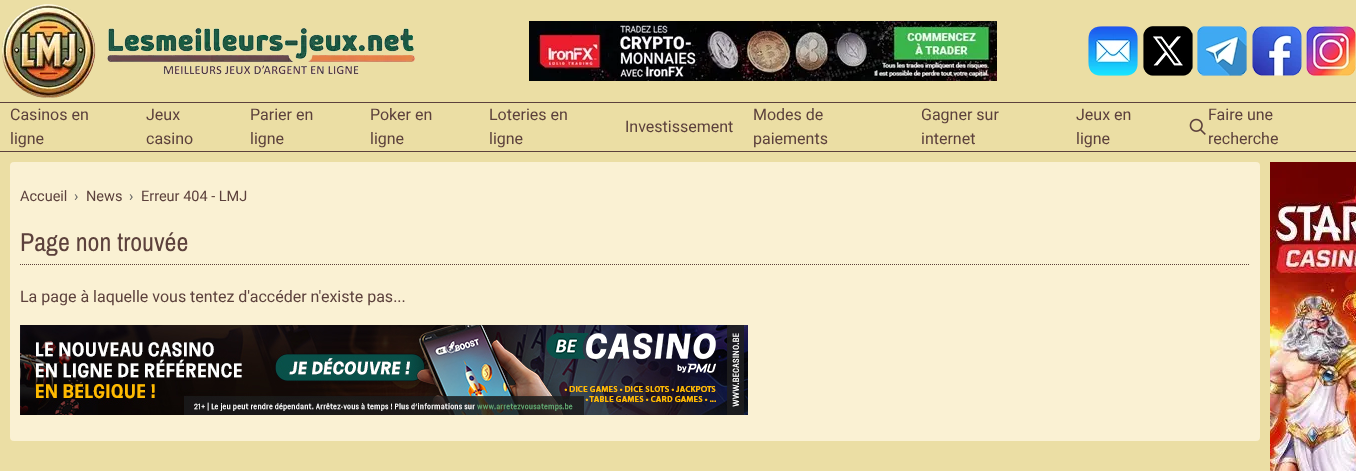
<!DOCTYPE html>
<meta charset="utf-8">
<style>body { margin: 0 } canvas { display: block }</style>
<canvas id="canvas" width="1356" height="471"></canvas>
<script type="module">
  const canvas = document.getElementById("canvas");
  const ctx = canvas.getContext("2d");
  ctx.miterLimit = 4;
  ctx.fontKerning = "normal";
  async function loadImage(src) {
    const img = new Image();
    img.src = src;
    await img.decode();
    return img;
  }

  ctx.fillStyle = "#ebdea4";
  ctx.fillRect(0, 0, 1356, 471);
  ctx.drawImage(await loadImage("img1.png"), 1, 4, 414, 94);
  ctx.drawImage(await loadImage("img2.png"), 529, 21, 468, 60);
  ctx.drawImage(await loadImage("img3.png"), 1088, 26, 50, 50);
  ctx.drawImage(await loadImage("img4.png"), 1143, 26, 50, 50);
  ctx.drawImage(await loadImage("img5.png"), 1197, 26, 50, 50);
  ctx.drawImage(await loadImage("img6.png"), 1252, 26, 50, 50);
  ctx.drawImage(await loadImage("img7.png"), 1306, 26, 50, 50);
  ctx.fillStyle = "#5c413c";
  ctx.fillRect(0, 102, 1356, 1);
  ctx.fillRect(0, 151, 1356, 1);
  ctx.font = "16px Roboto";
  ctx.fillText("Casinos en", 10, 120);
  ctx.fillText("ligne", 10, 144);
  ctx.fillText("Jeux", 146, 120);
  ctx.fillText("casino", 146, 144);
  ctx.fillText("Parier en", 250, 120);
  ctx.fillText("ligne", 250, 144);
  ctx.fillText("Poker en", 370, 120);
  ctx.fillText("ligne", 370, 144);
  ctx.fillText("Loteries en", 489, 120);
  ctx.fillText("ligne", 489, 144);
  ctx.fillText("Investissement", 625, 132);
  ctx.fillText("Modes de", 753, 120);
  ctx.fillText("paiements", 753, 144);
  ctx.fillText("Gagner sur", 921, 120);
  ctx.fillText("internet", 921, 144);
  ctx.fillText("Jeux en", 1076, 120);
  ctx.fillText("ligne", 1076, 144);
  ctx.drawImage(await loadImage("img8.png"), 1189, 118, 17, 17);
  ctx.fillText("Faire une", 1208, 120);
  ctx.fillText("recherche", 1208, 144);
  ctx.fillStyle = "#faf1d3";
  ctx.beginPath();
  ctx.roundRect(10, 162, 1250, 279, 4);
  ctx.fill();
  ctx.font = "14.5px Roboto";
  ctx.fillStyle = "#5c413c";
  ctx.fillText("Accueil", 20, 201);
  ctx.fillStyle = "#666666";
  ctx.fillText("›", 74, 201);
  ctx.fillStyle = "#5c413c";
  ctx.fillText("News", 86, 201);
  ctx.fillStyle = "#666666";
  ctx.fillText("›", 129, 201);
  ctx.fillStyle = "#5c413c";
  ctx.fillText("Erreur 404 - LMJ", 141, 201);
  ctx.beginPath();
  ctx.moveTo(20, 264.5);
  ctx.lineTo(1250, 264.5);
  ctx.strokeStyle = "#5c413c";
  ctx.setLineDash([1, 1]);
  ctx.stroke();
  ctx.font = "26px Archivo Narrow";
  ctx.fillText("Page non trouvée", 20, 251);
  ctx.font = "16px Roboto";
  ctx.fillText("La page à laquelle vous tentez d'accéder n'existe pas...", 20, 302);
  ctx.drawImage(await loadImage("img9.png"), 20, 325, 728, 90);
  ctx.drawImage(await loadImage("img10.png"), 1270, 162, 86, 309);
</script>
